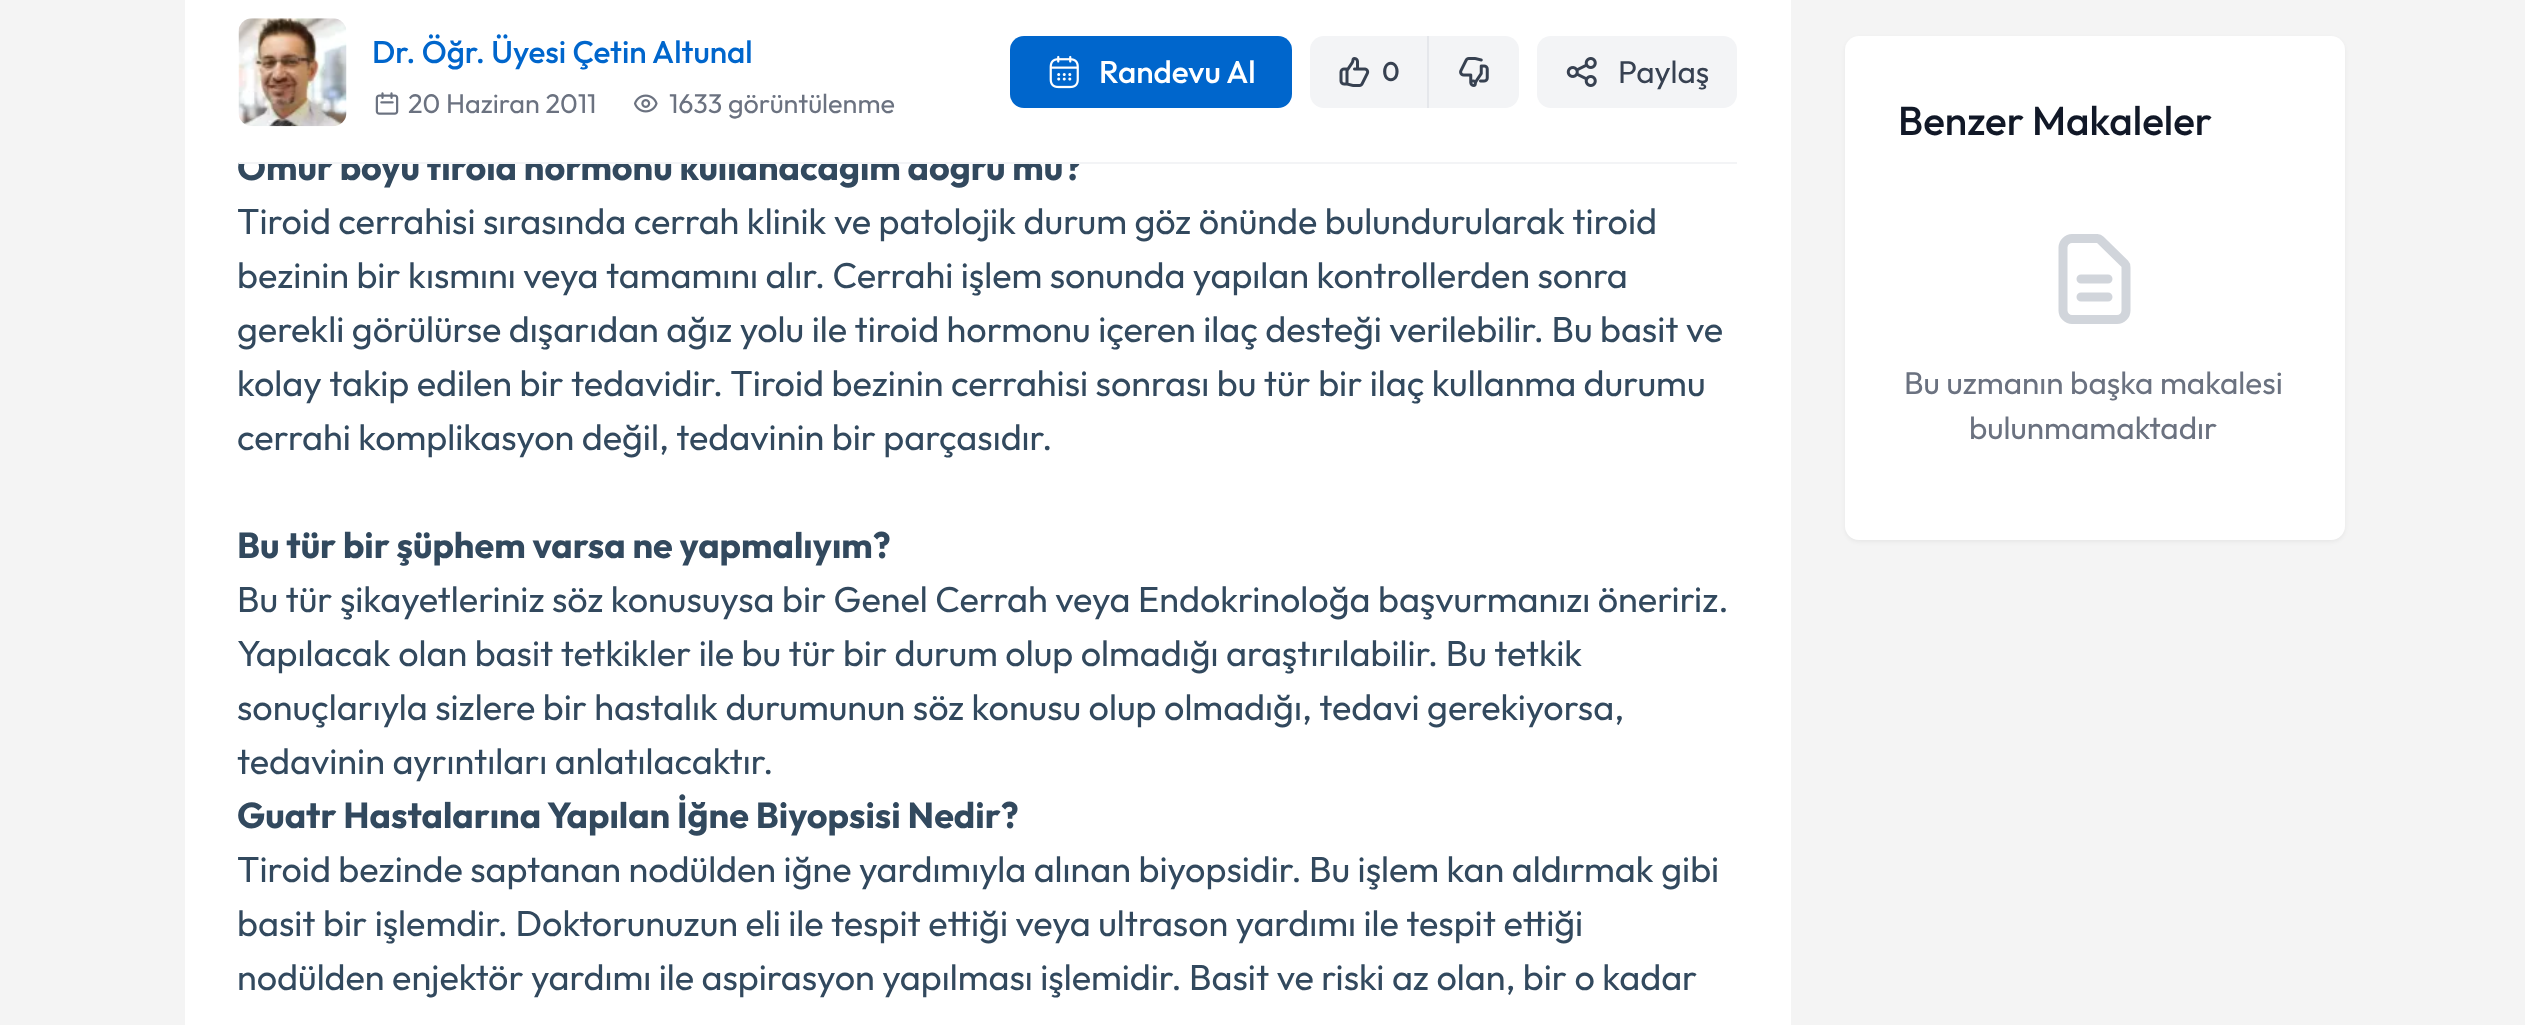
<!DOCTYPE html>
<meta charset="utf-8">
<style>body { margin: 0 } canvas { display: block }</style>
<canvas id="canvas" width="2525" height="1025"></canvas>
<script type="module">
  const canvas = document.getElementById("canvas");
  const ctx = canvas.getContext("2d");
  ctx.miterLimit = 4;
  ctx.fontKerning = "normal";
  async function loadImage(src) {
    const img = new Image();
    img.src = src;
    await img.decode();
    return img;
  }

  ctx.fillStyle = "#f4f4f4";
  ctx.fillRect(0, 0, 2525, 1025);
  ctx.fillStyle = "#ffffff";
  ctx.fillRect(185, 0, 1606, 1025);
  ctx.font = "bold 36px Outfit";
  ctx.fillStyle = "#32495e";
  ctx.fillText("Ömür boyu tiroid hormonu kullanacağım doğru mu?", 237, 180);
  ctx.fillStyle = "#ffffff";
  ctx.fillRect(239, 146, 842, 16);
  ctx.fillStyle = "#f3f4f6";
  ctx.fillRect(239, 162, 1498, 2);
  ctx.drawImage(await loadImage("img1.png"), 238, 18, 109, 109);
  ctx.font = "500 31.5px Outfit";
  ctx.fillStyle = "#0066cc";
  ctx.fillText("Dr. Öğr. Üyesi Çetin Altunal", 372, 63);
  ctx.drawImage(await loadImage("img2.png"), 375, 92, 24, 23);
  ctx.font = "27px Outfit";
  ctx.fillStyle = "#6b7280";
  ctx.fillText("20 Haziran 2011", 408, 113);
  ctx.drawImage(await loadImage("img3.png"), 633, 94, 25, 19);
  ctx.fillText("1633 görüntülenme", 669, 113);
  ctx.fillStyle = "#0066cc";
  ctx.beginPath();
  ctx.roundRect(1010, 36, 282, 72, 14);
  ctx.fill();
  ctx.drawImage(await loadImage("img4.png"), 1049, 55, 30, 34);
  ctx.font = "500 31.5px Outfit";
  ctx.fillStyle = "#ffffff";
  ctx.fillText("Randevu Al", 1099, 83);
  ctx.fillStyle = "#f3f4f6";
  ctx.beginPath();
  ctx.roundRect(1310, 36, 209, 72, 14);
  ctx.fill();
  ctx.drawImage(await loadImage("img5.png"), 1339, 57, 31, 30);
  ctx.font = "500 27px Outfit";
  ctx.fillStyle = "#374151";
  ctx.fillText("0", 1382, 81);
  ctx.fillStyle = "#e5e7eb";
  ctx.fillRect(1427, 36, 2, 72);
  ctx.drawImage(await loadImage("img6.png"), 1459, 57, 30, 30);
  ctx.fillStyle = "#f3f4f6";
  ctx.beginPath();
  ctx.roundRect(1537, 36, 200, 72, 14);
  ctx.fill();
  ctx.drawImage(await loadImage("img7.png"), 1566, 57, 31, 30);
  ctx.font = "31.5px Outfit";
  ctx.fillStyle = "#374151";
  ctx.fillText("Paylaş", 1618, 83);
  ctx.font = "36px Outfit";
  ctx.fillStyle = "#32495e";
  ctx.fillText("Tiroid cerrahisi sırasında cerrah klinik ve patolojik durum göz önünde bulundurularak tiroid", 237, 234);
  ctx.fillText("bezinin bir kısmını veya tamamını alır. Cerrahi işlem sonunda yapılan kontrollerden sonra", 237, 288);
  ctx.fillText("gerekli görülürse dışarıdan ağız yolu ile tiroid hormonu içeren ilaç desteği verilebilir. Bu basit ve", 237, 342);
  ctx.fillText("kolay takip edilen bir tedavidir. Tiroid bezinin cerrahisi sonrası bu tür bir ilaç kullanma durumu", 237, 396);
  ctx.fillText("cerrahi komplikasyon değil, tedavinin bir parçasıdır.", 237, 450);
  ctx.font = "bold 36px Outfit";
  ctx.fillText("Bu tür bir şüphem varsa ne yapmalıyım?", 237, 558);
  ctx.font = "36px Outfit";
  ctx.fillText("Bu tür şikayetleriniz söz konusuysa bir Genel Cerrah veya Endokrinoloğa başvurmanızı öneririz.", 237, 612);
  ctx.fillText("Yapılacak olan basit tetkikler ile bu tür bir durum olup olmadığı araştırılabilir. Bu tetkik", 237, 666);
  ctx.fillText("sonuçlarıyla sizlere bir hastalık durumunun söz konusu olup olmadığı, tedavi gerekiyorsa,", 237, 720);
  ctx.fillText("tedavinin ayrıntıları anlatılacaktır.", 237, 774);
  ctx.font = "bold 36px Outfit";
  ctx.fillText("Guatr Hastalarına Yapılan İğne Biyopsisi Nedir?", 237, 828);
  ctx.font = "36px Outfit";
  ctx.fillText("Tiroid bezinde saptanan nodülden iğne yardımıyla alınan biyopsidir. Bu işlem kan aldırmak gibi", 237, 882);
  ctx.fillText("basit bir işlemdir. Doktorunuzun eli ile tespit ettiği veya ultrason yardımı ile tespit ettiği", 237, 936);
  ctx.fillText("nodülden enjektör yardımı ile aspirasyon yapılması işlemidir. Basit ve riski az olan, bir o kadar", 237, 990);
  ctx.fillStyle = "rgba(0, 0, 0, 0.05)";
  ctx.filter = "blur(2px)";
  ctx.beginPath();
  ctx.roundRect(1845, 38, 500, 504, 14);
  ctx.fill();
  ctx.filter = "none";
  ctx.fillStyle = "#ffffff";
  ctx.beginPath();
  ctx.roundRect(1845, 36, 500, 504, 14);
  ctx.fill();
  ctx.font = "500 40.5px Outfit";
  ctx.fillStyle = "#111827";
  ctx.fillText("Benzer Makaleler", 1898, 135);
  ctx.beginPath();
  ctx.moveTo(2081, 279);
  ctx.lineTo(2108, 279);
  ctx.moveTo(2081, 297);
  ctx.lineTo(2108, 297);
  ctx.moveTo(2117, 319.5);
  ctx.lineTo(2072, 319.5);
  ctx.bezierCurveTo(2067.5, 319.5, 2063, 315.5, 2063, 310.5);
  ctx.lineTo(2063, 247.5);
  ctx.bezierCurveTo(2063, 242.5, 2067.5, 238.5, 2072, 238.5);
  ctx.lineTo(2097.5, 238.5);
  ctx.bezierCurveTo(2098.5, 238.5, 2099.5, 239, 2100.5, 240);
  ctx.lineTo(2125, 264);
  ctx.bezierCurveTo(2126, 265, 2126, 266, 2126, 267.5);
  ctx.lineTo(2126, 310.5);
  ctx.bezierCurveTo(2126, 315.5, 2122, 319.5, 2117, 319.5);
  ctx.closePath();
  ctx.strokeStyle = "#d1d5db";
  ctx.lineWidth = 9;
  ctx.lineCap = "round";
  ctx.lineJoin = "round";
  ctx.stroke();
  ctx.font = "31.5px Outfit";
  ctx.fillStyle = "#6b7280";
  ctx.fillText("Bu uzmanın başka makalesi", 1904, 394);
  ctx.fillText("bulunmamaktadır", 1969, 439);
</script>
